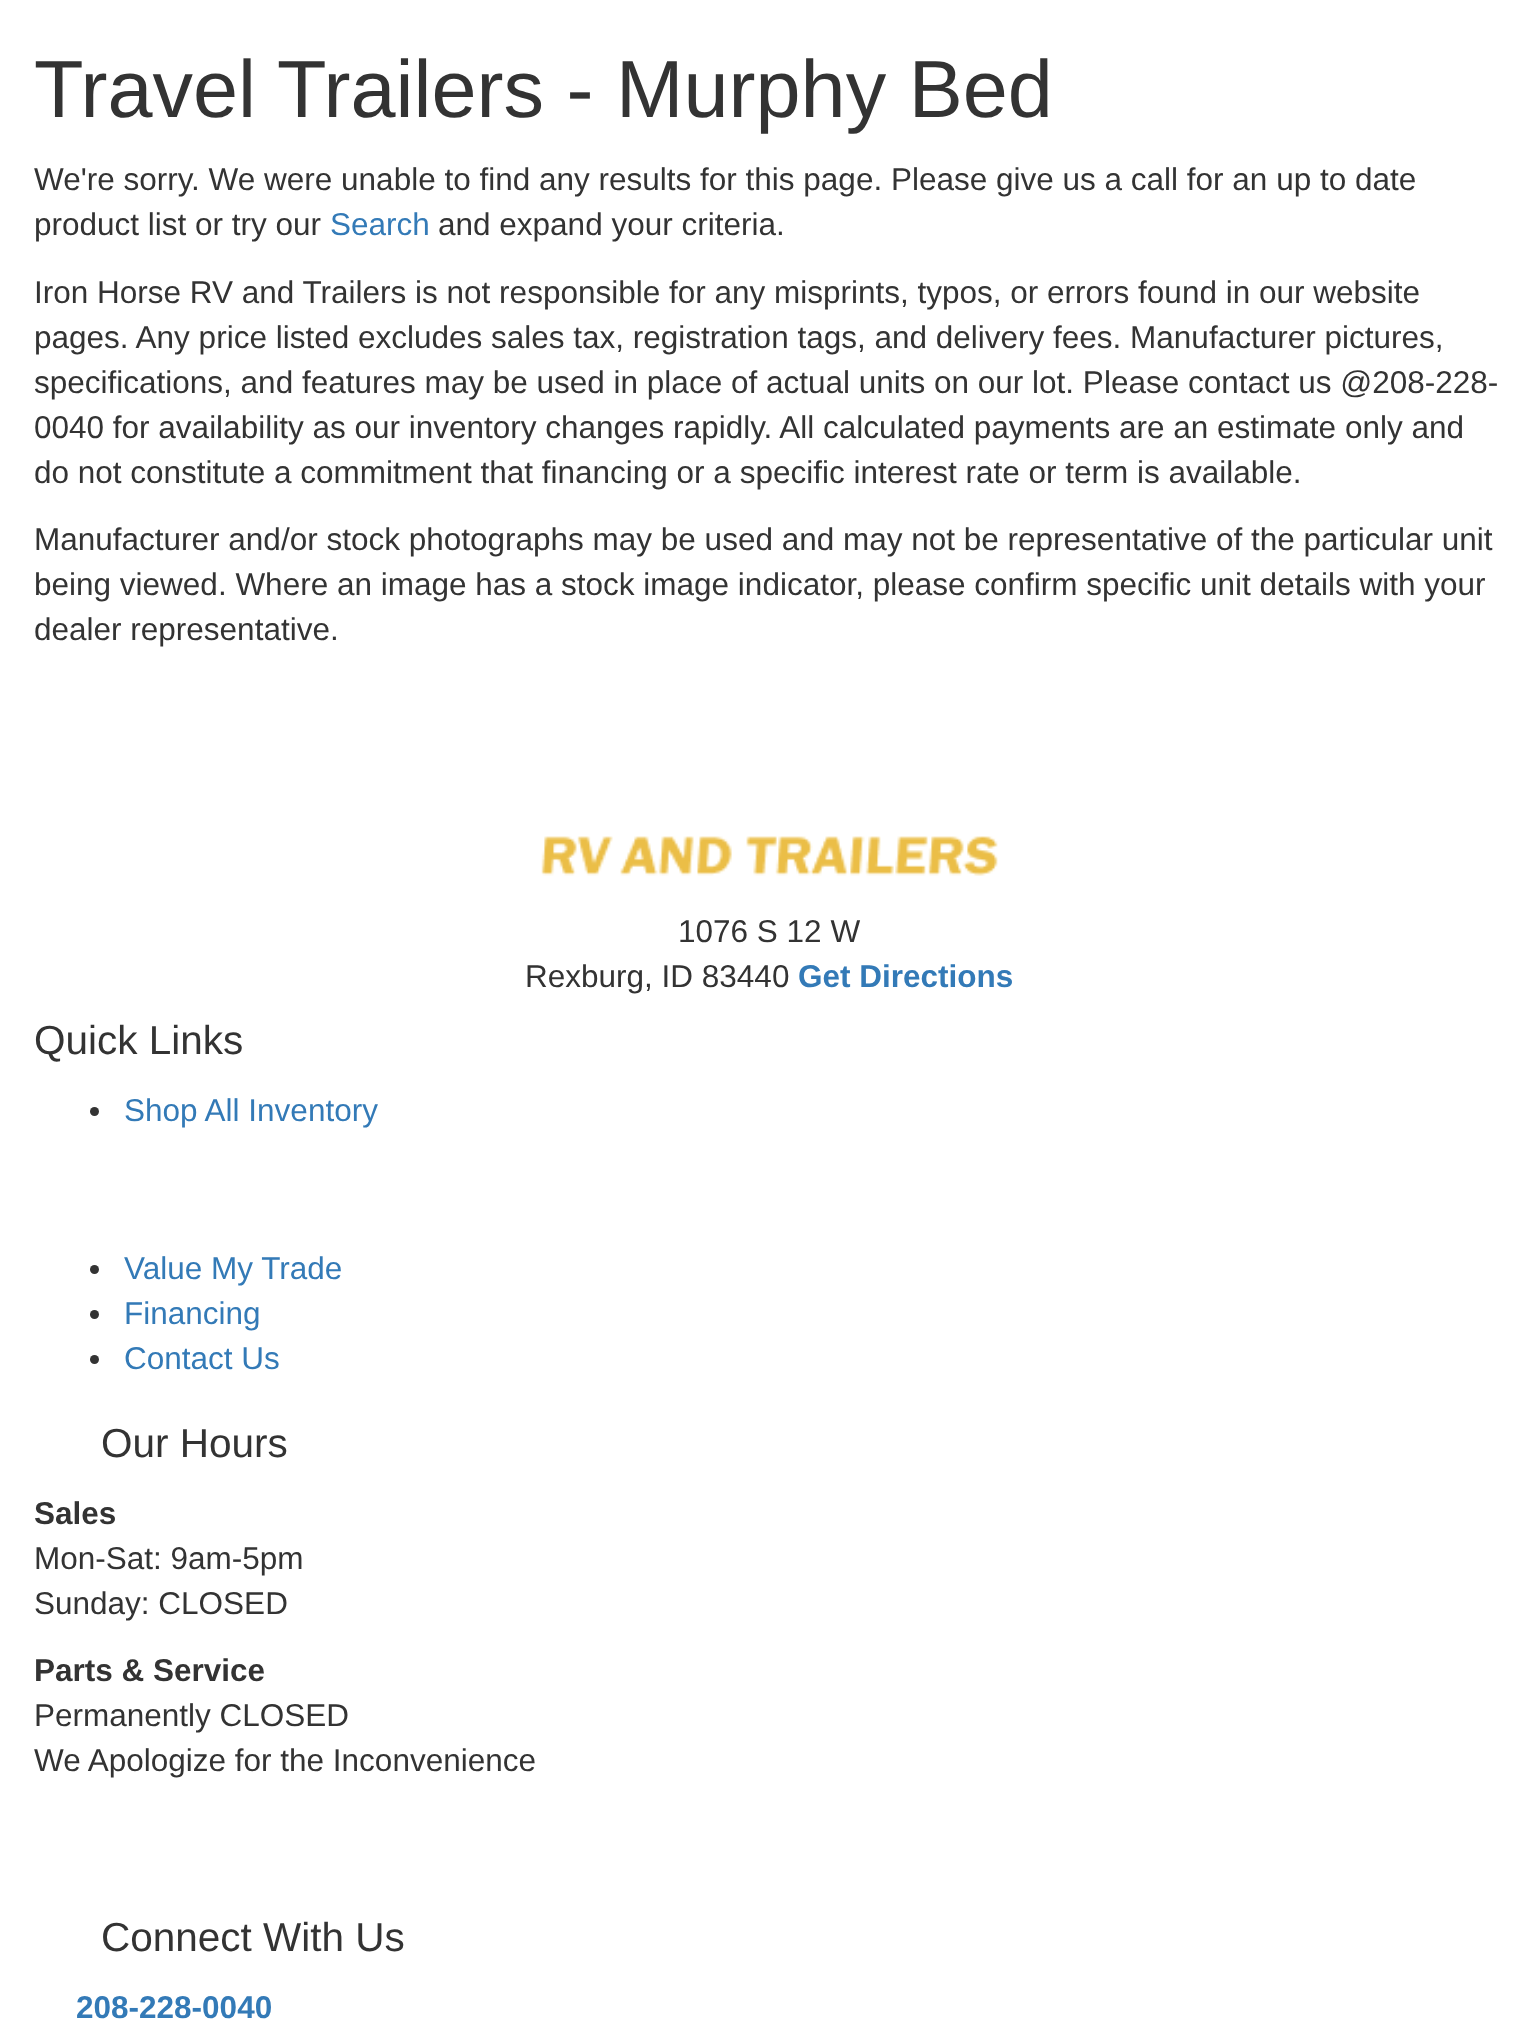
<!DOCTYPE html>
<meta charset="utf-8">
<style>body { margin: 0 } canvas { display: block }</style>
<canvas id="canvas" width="1539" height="2028"></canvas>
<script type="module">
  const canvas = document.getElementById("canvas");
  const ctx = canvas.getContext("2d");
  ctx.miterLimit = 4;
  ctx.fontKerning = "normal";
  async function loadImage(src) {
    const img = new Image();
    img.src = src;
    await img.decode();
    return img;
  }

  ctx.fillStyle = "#ffffff";
  ctx.fillRect(0, 0, 1539, 2028);
  ctx.font = "81px Liberation Sans";
  ctx.fillStyle = "#333333";
  ctx.fillText("Travel Trailers - Murphy Bed", 34, 117);
  ctx.font = "31.5px Liberation Sans";
  ctx.fillText("We're sorry. We were unable to find any results for this page. Please give us a call for an up to date", 34, 190);
  ctx.fillText("product list or try our", 34, 235);
  ctx.fillStyle = "#337ab7";
  ctx.fillText("Search", 330, 235);
  ctx.fillStyle = "#333333";
  ctx.fillText("and expand your criteria.", 438, 235);
  ctx.fillText("Iron Horse RV and Trailers is not responsible for any misprints, typos, or errors found in our website", 34, 303);
  ctx.fillText("pages. Any price listed excludes sales tax, registration tags, and delivery fees. Manufacturer pictures,", 34, 348);
  ctx.fillText("specifications, and features may be used in place of actual units on our lot. Please contact us @208-228-", 34, 393);
  ctx.fillText("0040 for availability as our inventory changes rapidly. All calculated payments are an estimate only and", 34, 438);
  ctx.fillText("do not constitute a commitment that financing or a specific interest rate or term is available.", 34, 483);
  ctx.fillText("Manufacturer and/or stock photographs may be used and may not be representative of the particular unit", 34, 550);
  ctx.fillText("being viewed. Where an image has a stock image indicator, please confirm specific unit details with your", 34, 595);
  ctx.fillText("dealer representative.", 34, 640);
  ctx.drawImage(await loadImage("img1.png"), 541, 836, 457, 40);
  ctx.fillText("1076 S 12 W", 678, 942);
  ctx.fillText("Rexburg, ID 83440", 525, 987);
  ctx.font = "bold 31.5px Liberation Sans";
  ctx.fillStyle = "#337ab7";
  ctx.fillText("Get Directions", 798, 987);
  ctx.font = "40.5px Liberation Sans";
  ctx.fillStyle = "#333333";
  ctx.fillText("Quick Links", 34, 1054);
  ctx.beginPath();
  ctx.arc(94.5, 1111.5, 4.5, 0, Math.PI * 2);
  ctx.fill();
  ctx.font = "31.5px Liberation Sans";
  ctx.fillStyle = "#337ab7";
  ctx.fillText("Shop All Inventory", 124, 1121);
  ctx.fillStyle = "#333333";
  ctx.beginPath();
  ctx.arc(94.5, 1269.5, 4.5, 0, Math.PI * 2);
  ctx.fill();
  ctx.fillStyle = "#337ab7";
  ctx.fillText("Value My Trade", 124, 1279);
  ctx.fillStyle = "#333333";
  ctx.beginPath();
  ctx.arc(94.5, 1314.5, 4.5, 0, Math.PI * 2);
  ctx.fill();
  ctx.fillStyle = "#337ab7";
  ctx.fillText("Financing", 124, 1324);
  ctx.fillStyle = "#333333";
  ctx.beginPath();
  ctx.arc(94.5, 1359.5, 4.5, 0, Math.PI * 2);
  ctx.fill();
  ctx.fillStyle = "#337ab7";
  ctx.fillText("Contact Us", 124, 1369);
  ctx.font = "40.5px Liberation Sans";
  ctx.fillStyle = "#333333";
  ctx.fillText("Our Hours", 101, 1457);
  ctx.font = "bold 31.5px Liberation Sans";
  ctx.fillText("Sales", 34, 1524);
  ctx.font = "31.5px Liberation Sans";
  ctx.fillText("Mon-Sat: 9am-5pm", 34, 1569);
  ctx.fillText("Sunday: CLOSED", 34, 1614);
  ctx.font = "bold 31.5px Liberation Sans";
  ctx.fillText("Parts & Service", 34, 1681);
  ctx.font = "31.5px Liberation Sans";
  ctx.fillText("Permanently CLOSED", 34, 1726);
  ctx.fillText("We Apologize for the Inconvenience", 34, 1771);
  ctx.font = "40.5px Liberation Sans";
  ctx.fillText("Connect With Us", 101, 1951);
  ctx.font = "bold 31.5px Liberation Sans";
  ctx.fillStyle = "#337ab7";
  ctx.fillText("208-228-0040", 76, 2018);
</script>
